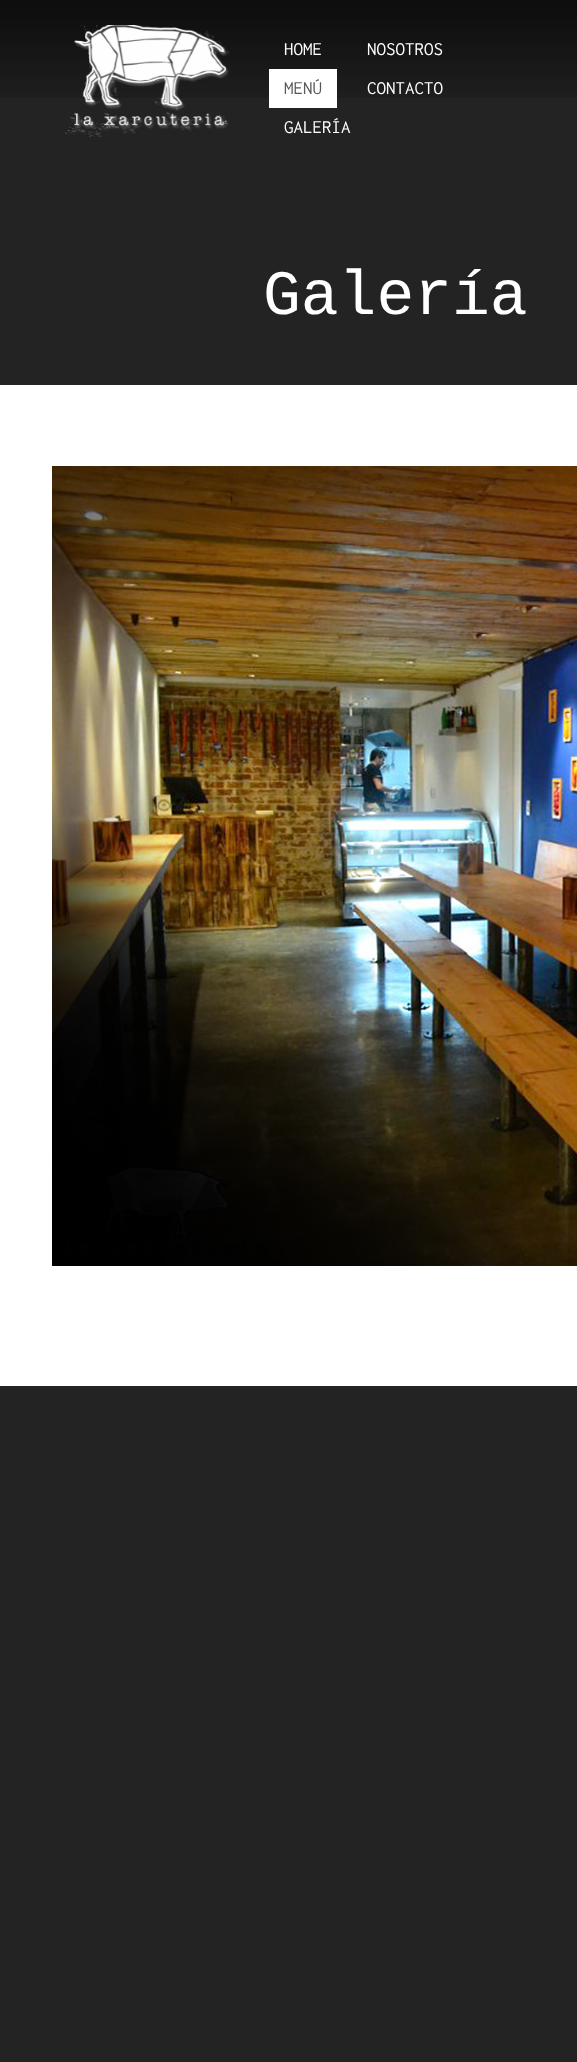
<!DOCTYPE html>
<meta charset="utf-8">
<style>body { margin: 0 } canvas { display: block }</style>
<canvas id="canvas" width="577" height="2062"></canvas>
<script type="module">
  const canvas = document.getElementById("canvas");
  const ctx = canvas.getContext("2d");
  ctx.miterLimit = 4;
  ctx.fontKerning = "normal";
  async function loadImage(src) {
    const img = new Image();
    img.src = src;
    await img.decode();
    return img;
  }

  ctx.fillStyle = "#232323";
  ctx.fillRect(0, 0, 577, 2062);
  ctx.drawImage(await loadImage("img1.png"), 0, 0, 577, 98);
  ctx.drawImage(await loadImage("img2.png"), 65, 25, 165, 112);
  ctx.font = "19px Inconsolata";
  ctx.fillStyle = "#ffffff";
  ctx.fillText("HOME", 284, 55);
  ctx.fillText("NOSOTROS", 367, 55);
  ctx.fillRect(269, 69, 68, 39);
  ctx.fillStyle = "#585858";
  ctx.fillText("MENÚ", 284, 94);
  ctx.fillStyle = "#ffffff";
  ctx.fillText("CONTACTO", 367, 94);
  ctx.fillText("GALERÍA", 284, 133);
  ctx.font = "63px Liberation Mono";
  ctx.fillText("Galería", 263, 314);
  ctx.fillRect(0, 385, 577, 1001);
  ctx.drawImage(await loadImage("img3.png"), 52, 466, 525, 800);
</script>
